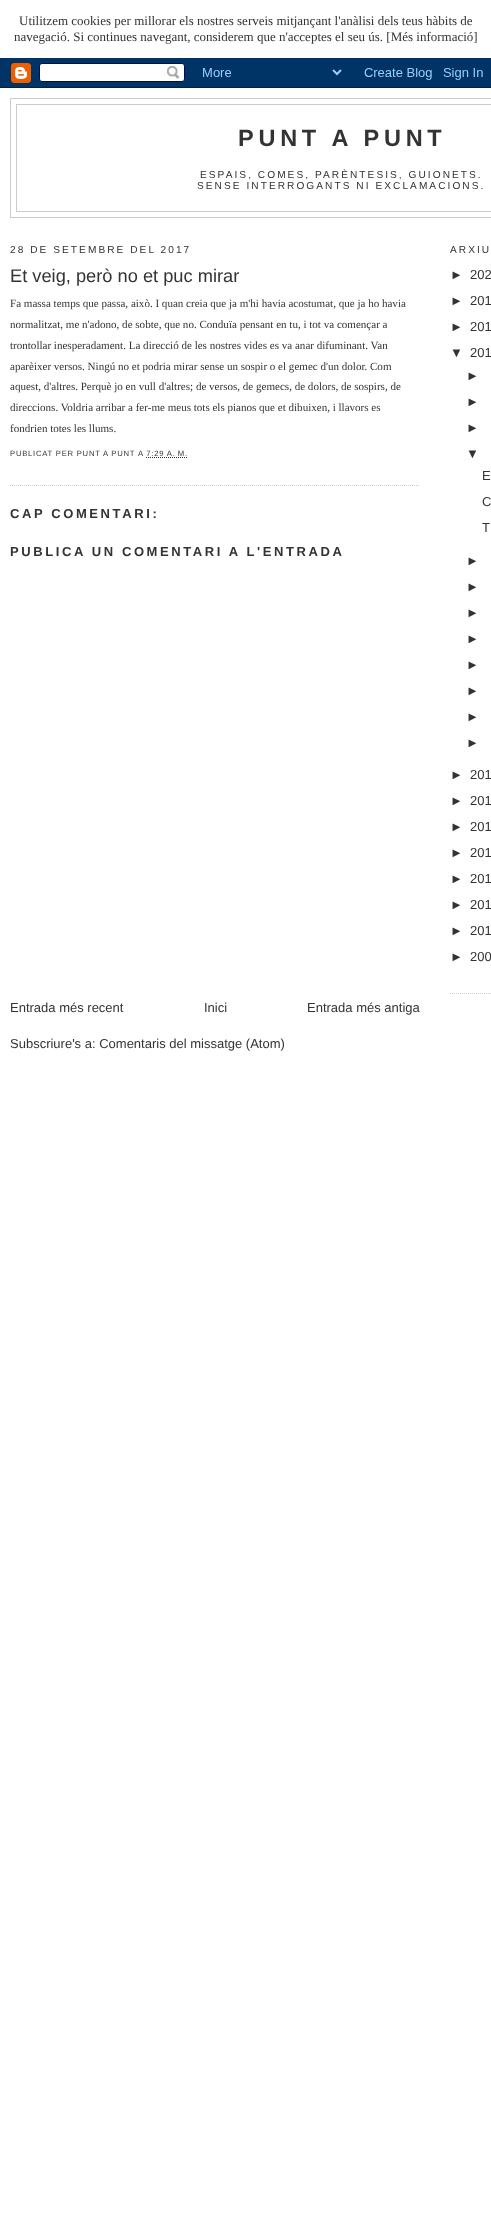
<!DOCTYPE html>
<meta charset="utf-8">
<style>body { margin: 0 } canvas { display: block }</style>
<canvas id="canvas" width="491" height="2232"></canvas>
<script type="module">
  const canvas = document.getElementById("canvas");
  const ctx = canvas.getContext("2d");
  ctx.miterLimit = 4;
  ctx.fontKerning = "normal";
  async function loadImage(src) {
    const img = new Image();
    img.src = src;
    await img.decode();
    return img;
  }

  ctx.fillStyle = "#ffffff";
  ctx.fillRect(0, 0, 491, 2232);
  ctx.font = "13px Liberation Serif";
  ctx.fillStyle = "#333333";
  ctx.fillText("Utilitzem cookies per millorar els nostres serveis mitjançant l'anàlisi dels teus hàbits de", 19, 25);
  ctx.fillText("navegació. Si continues navegant, considerem que n'acceptes el seu ús. [Més informació]", 14, 41);
  ctx.drawImage(await loadImage("img1.png"), 0, 58, 491, 30);
  ctx.strokeStyle = "#cccccc";
  ctx.strokeRect(10.5, 98.5, 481, 119);
  ctx.strokeRect(16.5, 104.5, 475, 107);
  ctx.letterSpacing = "4.75px";
  ctx.font = "bold 23.5px Liberation Sans";
  ctx.fillText("PUNT A PUNT", 238, 146);
  ctx.letterSpacing = "2.05px";
  ctx.font = "10.15px Liberation Sans";
  ctx.fillText("ESPAIS, COMES, PARÈNTESIS, GUIONETS.", 200, 178);
  ctx.fillText("SENSE INTERROGANTS NI EXCLAMACIONS.", 197, 189);
  ctx.fillText("28 DE SETEMBRE DEL 2017", 10, 253);
  ctx.beginPath();
  ctx.moveTo(10, 485.5);
  ctx.lineTo(420, 485.5);
  ctx.setLineDash([1, 1]);
  ctx.stroke();
  ctx.letterSpacing = "0px";
  ctx.font = "18.25px Liberation Sans";
  ctx.fillText("Et veig, però no et puc mirar", 10, 282);
  ctx.font = "11.05px Liberation Serif";
  ctx.fillText("Fa massa temps que passa, això. I quan creia que ja m'hi havia acostumat, que ja ho havia", 10, 307);
  ctx.fillText("normalitzat, me n'adono, de sobte, que no. Conduïa pensant en tu, i tot va començar a", 10, 328);
  ctx.fillText("trontollar inesperadament. La direcció de les nostres vides es va anar difuminant. Van", 10, 349);
  ctx.fillText("aparèixer versos. Ningú no et podria mirar sense un sospir o el gemec d'un dolor. Com", 10, 370);
  ctx.fillText("aquest, d'altres. Perquè jo en vull d'altres; de versos, de gemecs, de dolors, de sospirs, de", 10, 390);
  ctx.fillText("direccions. Voldria arribar a fer-me meus tots els pianos que et dibuixen, i llavors es", 10, 411);
  ctx.fillText("fondrien totes les llums.", 10, 432);
  ctx.letterSpacing = "0.75px";
  ctx.font = "7.7px Liberation Sans";
  ctx.fillText("PUBLICAT PER PUNT A PUNT", 10, 456);
  ctx.fillText("A 7:29 A. M.", 138, 456);
  ctx.beginPath();
  ctx.moveTo(146, 457.5);
  ctx.lineTo(187.5, 457.5);
  ctx.strokeStyle = "#333333";
  ctx.stroke();
  ctx.letterSpacing = "2.6px";
  ctx.font = "bold 13px Liberation Sans";
  ctx.fillText("CAP COMENTARI:", 10, 518);
  ctx.fillText("PUBLICA UN COMENTARI A L'ENTRADA", 10, 556);
  ctx.letterSpacing = "0px";
  ctx.font = "13px Liberation Sans";
  ctx.fillText("Entrada més recent", 10, 1012);
  ctx.fillText("Inici", 204, 1012);
  ctx.fillText("Entrada més antiga", 307, 1012);
  ctx.fillText("Subscriure's a: Comentaris del missatge (Atom)", 10, 1048);
  ctx.beginPath();
  ctx.moveTo(450, 993.5);
  ctx.lineTo(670, 993.5);
  ctx.strokeStyle = "#cccccc";
  ctx.stroke();
  ctx.letterSpacing = "2.05px";
  ctx.font = "10.15px Liberation Sans";
  ctx.fillText("ARXIU", 450, 253);
  ctx.letterSpacing = "0px";
  ctx.font = "13px Liberation Sans";
  ctx.fillText("►", 450, 279);
  ctx.fillText("202", 470, 279);
  ctx.fillText("►", 450, 305);
  ctx.fillText("201", 470, 305);
  ctx.fillText("►", 450, 331);
  ctx.fillText("201", 470, 331);
  ctx.fillText("▼", 450, 357);
  ctx.fillText("201", 470, 357);
  ctx.fillText("►", 466, 380);
  ctx.fillText("►", 466, 406);
  ctx.fillText("►", 466, 432);
  ctx.fillText("▼", 466, 458);
  ctx.fillText("E", 482, 480);
  ctx.fillText("C", 482, 506);
  ctx.fillText("T", 482, 532);
  ctx.fillText("►", 466, 565);
  ctx.fillText("►", 466, 591);
  ctx.fillText("►", 466, 617);
  ctx.fillText("►", 466, 643);
  ctx.fillText("►", 466, 669);
  ctx.fillText("►", 466, 695);
  ctx.fillText("►", 466, 721);
  ctx.fillText("►", 466, 747);
  ctx.fillText("►", 450, 779);
  ctx.fillText("201", 470, 779);
  ctx.fillText("►", 450, 805);
  ctx.fillText("201", 470, 805);
  ctx.fillText("►", 450, 831);
  ctx.fillText("201", 470, 831);
  ctx.fillText("►", 450, 857);
  ctx.fillText("201", 470, 857);
  ctx.fillText("►", 450, 883);
  ctx.fillText("201", 470, 883);
  ctx.fillText("►", 450, 909);
  ctx.fillText("201", 470, 909);
  ctx.fillText("►", 450, 935);
  ctx.fillText("201", 470, 935);
  ctx.fillText("►", 450, 961);
  ctx.fillText("200", 470, 961);
</script>
